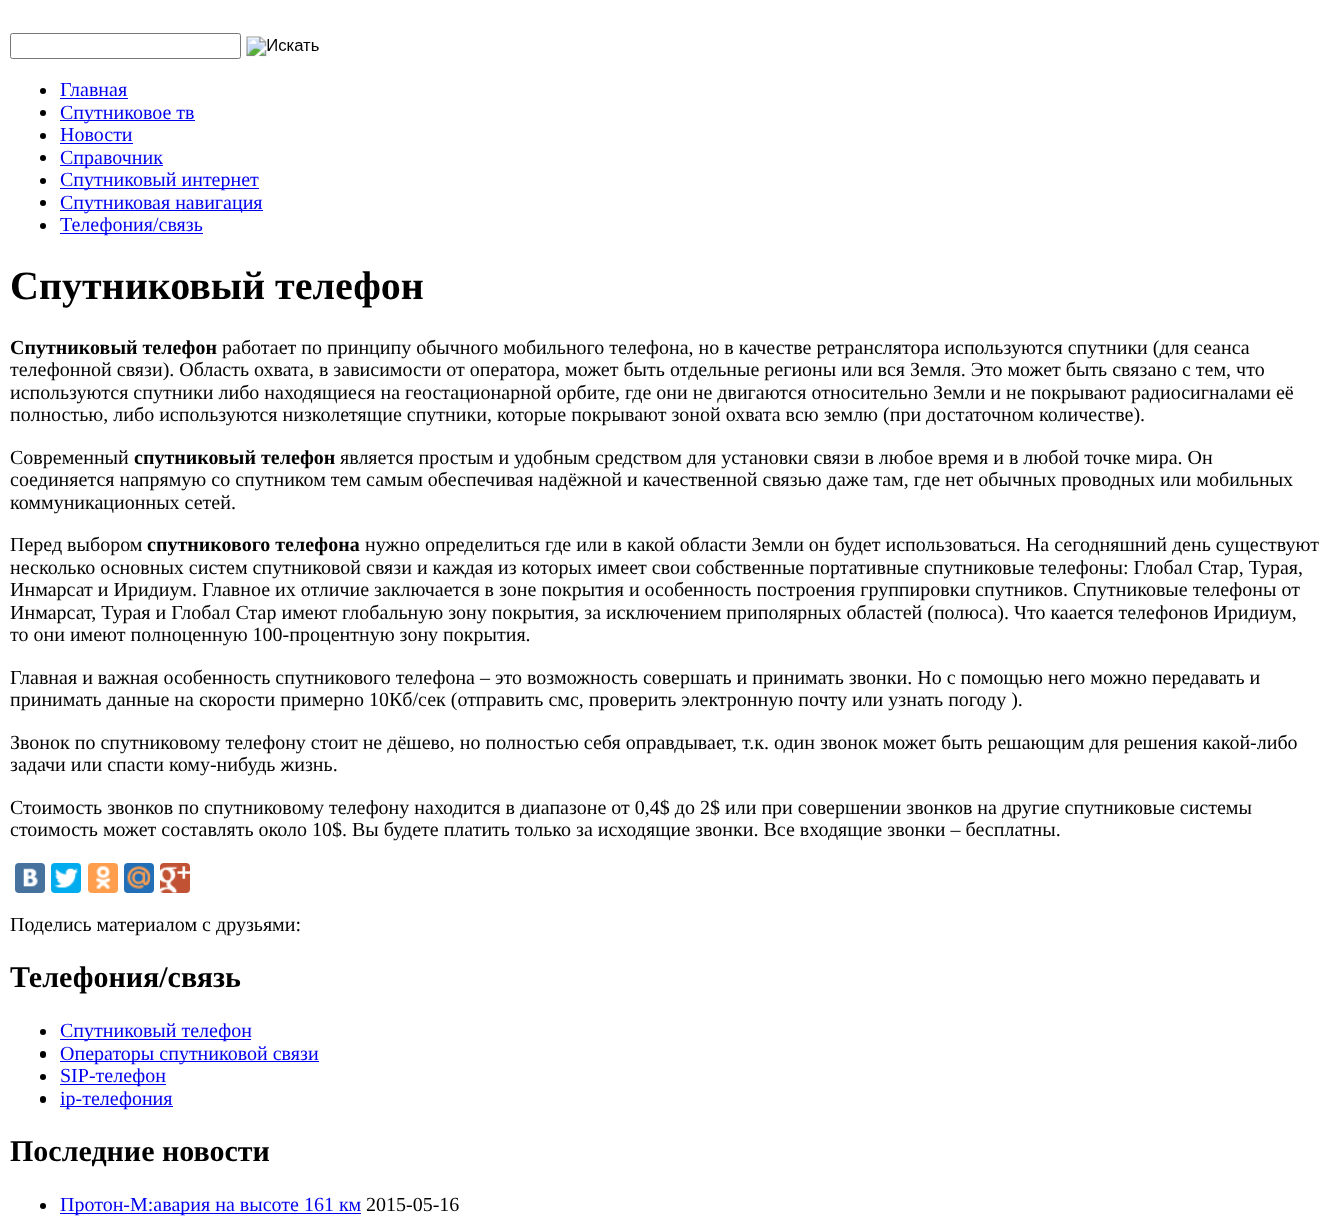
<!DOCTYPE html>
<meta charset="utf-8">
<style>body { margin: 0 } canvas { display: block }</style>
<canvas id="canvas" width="1329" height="1216"></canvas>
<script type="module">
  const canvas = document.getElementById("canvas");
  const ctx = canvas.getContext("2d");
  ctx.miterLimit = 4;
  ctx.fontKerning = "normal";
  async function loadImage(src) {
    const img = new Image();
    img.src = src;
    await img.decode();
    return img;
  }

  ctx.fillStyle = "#ffffff";
  ctx.fillRect(0, 0, 1329, 1216);
  ctx.beginPath();
  ctx.roundRect(10.5, 33.5, 230, 25, 2);
  ctx.strokeStyle = "#767676";
  ctx.stroke();
  ctx.drawImage(await loadImage("img1.png"), 246, 36, 73, 21);
  ctx.fillStyle = "#000000";
  ctx.beginPath();
  ctx.arc(43, 91, 3, 0, Math.PI * 2);
  ctx.fill();
  ctx.font = "20px Liberation Serif";
  ctx.fillStyle = "#0000ee";
  ctx.fillText("Главная", 60, 96);
  ctx.fillRect(60, 98, 68, 1);
  ctx.fillStyle = "#000000";
  ctx.beginPath();
  ctx.arc(43, 113, 3, 0, Math.PI * 2);
  ctx.fill();
  ctx.fillStyle = "#0000ee";
  ctx.fillRect(60, 120, 135, 1);
  ctx.fillText("Спутниковое тв", 60, 119);
  ctx.fillStyle = "#000000";
  ctx.beginPath();
  ctx.arc(43, 136, 3, 0, Math.PI * 2);
  ctx.fill();
  ctx.fillStyle = "#0000ee";
  ctx.fillText("Новости", 60, 141);
  ctx.fillRect(60, 143, 73, 1);
  ctx.fillStyle = "#000000";
  ctx.beginPath();
  ctx.arc(43, 158, 3, 0, Math.PI * 2);
  ctx.fill();
  ctx.fillStyle = "#0000ee";
  ctx.fillRect(60, 165, 103, 1);
  ctx.fillText("Справочник", 60, 164);
  ctx.fillStyle = "#000000";
  ctx.beginPath();
  ctx.arc(43, 181, 3, 0, Math.PI * 2);
  ctx.fill();
  ctx.fillStyle = "#0000ee";
  ctx.fillRect(60, 188, 199, 1);
  ctx.fillText("Спутниковый интернет", 60, 186);
  ctx.fillStyle = "#000000";
  ctx.beginPath();
  ctx.arc(43, 203, 3, 0, Math.PI * 2);
  ctx.fill();
  ctx.fillStyle = "#0000ee";
  ctx.fillRect(60, 210, 203, 1);
  ctx.fillText("Спутниковая навигация", 60, 209);
  ctx.fillStyle = "#000000";
  ctx.beginPath();
  ctx.arc(43, 226, 3, 0, Math.PI * 2);
  ctx.fill();
  ctx.fillStyle = "#0000ee";
  ctx.fillRect(60, 233, 143, 1);
  ctx.fillText("Телефония/связь", 60, 231);
  ctx.font = "bold 40px Liberation Serif";
  ctx.fillStyle = "#000000";
  ctx.fillText("Спутниковый телефон", 10, 299);
  ctx.font = "bold 20px Liberation Serif";
  ctx.fillText("Спутниковый телефон", 10, 354);
  ctx.font = "20px Liberation Serif";
  ctx.fillText("работает по принципу обычного мобильного телефона, но в качестве ретранслятора используются спутники (для сеанса", 222, 354);
  ctx.fillText("телефонной связи). Область охвата, в зависимости от оператора, может быть отдельные регионы или вся Земля. Это может быть связано с тем, что", 10, 376);
  ctx.fillText("используются спутники либо находящиеся на геостационарной орбите, где они не двигаются относительно Земли и не покрывают радиосигналами её", 10, 399);
  ctx.fillText("полностью, либо используются низколетящие спутники, которые покрывают зоной охвата всю землю (при достаточном количестве).", 10, 421);
  ctx.fillText("Современный", 10, 464);
  ctx.font = "bold 20px Liberation Serif";
  ctx.fillText("спутниковый телефон", 134, 464);
  ctx.font = "20px Liberation Serif";
  ctx.fillText("является простым и удобным средством для установки связи в любое время и в любой точке мира. Он", 340, 464);
  ctx.fillText("соединяется напрямую со спутником тем самым обеспечивая надёжной и качественной связью даже там, где нет обычных проводных или мобильных", 10, 486);
  ctx.fillText("коммуникационных сетей.", 10, 509);
  ctx.fillText("Перед выбором", 10, 551);
  ctx.font = "bold 20px Liberation Serif";
  ctx.fillText("спутникового телефона", 147, 551);
  ctx.font = "20px Liberation Serif";
  ctx.fillText("нужно определиться где или в какой области Земли он будет использоваться. На сегодняшний день существуют", 365, 551);
  ctx.fillText("несколько основных систем спутниковой связи и каждая из которых имеет свои собственные портативные спутниковые телефоны: Глобал Стар, Турая,", 10, 574);
  ctx.fillText("Инмарсат и Иридиум. Главное их отличие заключается в зоне покрытия и особенность построения группировки спутников. Спутниковые телефоны от", 10, 596);
  ctx.fillText("Инмарсат, Турая и Глобал Стар имеют глобальную зону покрытия, за исключением приполярных областей (полюса). Что каается телефонов Иридиум,", 10, 619);
  ctx.fillText("то они имеют полноценную 100-процентную зону покрытия.", 10, 641);
  ctx.fillText("Главная и важная особенность спутникового телефона – это возможность совершать и принимать звонки. Но с помощью него можно передавать и", 10, 684);
  ctx.fillText("принимать данные на скорости примерно 10Кб/сек (отправить смс, проверить электронную почту или узнать погоду ).", 10, 706);
  ctx.fillText("Звонок по спутниковому телефону стоит не дёшево, но полностью себя оправдывает, т.к. один звонок может быть решающим для решения какой-либо", 10, 749);
  ctx.fillText("задачи или спасти кому-нибудь жизнь.", 10, 771);
  ctx.fillText("Стоимость звонков по спутниковому телефону находится в диапазоне от 0,4$ до 2$ или при совершении звонков на другие спутниковые системы", 10, 814);
  ctx.fillText("стоимость может составлять около 10$. Вы будете платить только за исходящие звонки. Все входящие звонки – бесплатны.", 10, 836);
  ctx.fillStyle = "#48729e";
  ctx.beginPath();
  ctx.roundRect(15, 863, 30, 30, 4);
  ctx.fill();
  ctx.drawImage(await loadImage("img2.png"), 23, 868, 15, 19);
  ctx.fillStyle = "#00aced";
  ctx.beginPath();
  ctx.roundRect(51, 863, 30, 30, 4);
  ctx.fill();
  ctx.drawImage(await loadImage("img3.png"), 54, 868, 24, 20);
  ctx.fillStyle = "#ff9f4d";
  ctx.beginPath();
  ctx.roundRect(88, 863, 30, 30, 4);
  ctx.fill();
  ctx.drawImage(await loadImage("img4.png"), 96, 866, 15, 23);
  ctx.fillStyle = "#226eb7";
  ctx.beginPath();
  ctx.roundRect(124, 863, 30, 30, 4);
  ctx.fill();
  ctx.drawImage(await loadImage("img5.png"), 127, 866, 24, 23);
  ctx.fillStyle = "#c25234";
  ctx.beginPath();
  ctx.roundRect(160, 863, 30, 30, 4);
  ctx.fill();
  ctx.drawImage(await loadImage("img6.png"), 160, 866, 30, 27);
  ctx.fillStyle = "#000000";
  ctx.fillText("Поделись материалом с друзьями:", 10, 931);
  ctx.font = "bold 30px Liberation Serif";
  ctx.fillText("Телефония/связь", 10, 987);
  ctx.beginPath();
  ctx.arc(43, 1032, 3, 0, Math.PI * 2);
  ctx.fill();
  ctx.fillStyle = "#0000ee";
  ctx.fillRect(60, 1039, 191, 1);
  ctx.font = "20px Liberation Serif";
  ctx.fillText("Спутниковый телефон", 60, 1037);
  ctx.fillStyle = "#000000";
  ctx.beginPath();
  ctx.roundRect(40, 1051, 6, 7, 3);
  ctx.fill();
  ctx.fillStyle = "#0000ee";
  ctx.fillRect(60, 1061, 259, 1);
  ctx.fillText("Операторы спутниковой связи", 60, 1060);
  ctx.fillStyle = "#000000";
  ctx.beginPath();
  ctx.arc(43, 1077, 3, 0, Math.PI * 2);
  ctx.fill();
  ctx.fillStyle = "#0000ee";
  ctx.fillRect(60, 1084, 106, 1);
  ctx.fillText("SIP-телефон", 60, 1082);
  ctx.fillStyle = "#000000";
  ctx.beginPath();
  ctx.roundRect(40, 1096, 6, 7, 3);
  ctx.fill();
  ctx.fillStyle = "#0000ee";
  ctx.fillRect(60, 1106, 113, 1);
  ctx.fillText("ip-телефония", 60, 1105);
  ctx.font = "bold 30px Liberation Serif";
  ctx.fillStyle = "#000000";
  ctx.fillText("Последние новости", 10, 1161);
  ctx.beginPath();
  ctx.arc(43, 1206, 3, 0, Math.PI * 2);
  ctx.fill();
  ctx.fillStyle = "#0000ee";
  ctx.fillRect(60, 1213, 301, 1);
  ctx.font = "20px Liberation Serif";
  ctx.fillText("Протон-М:авария на высоте 161 км", 60, 1211);
  ctx.fillStyle = "#000000";
  ctx.fillText("2015-05-16", 366, 1211);
</script>
